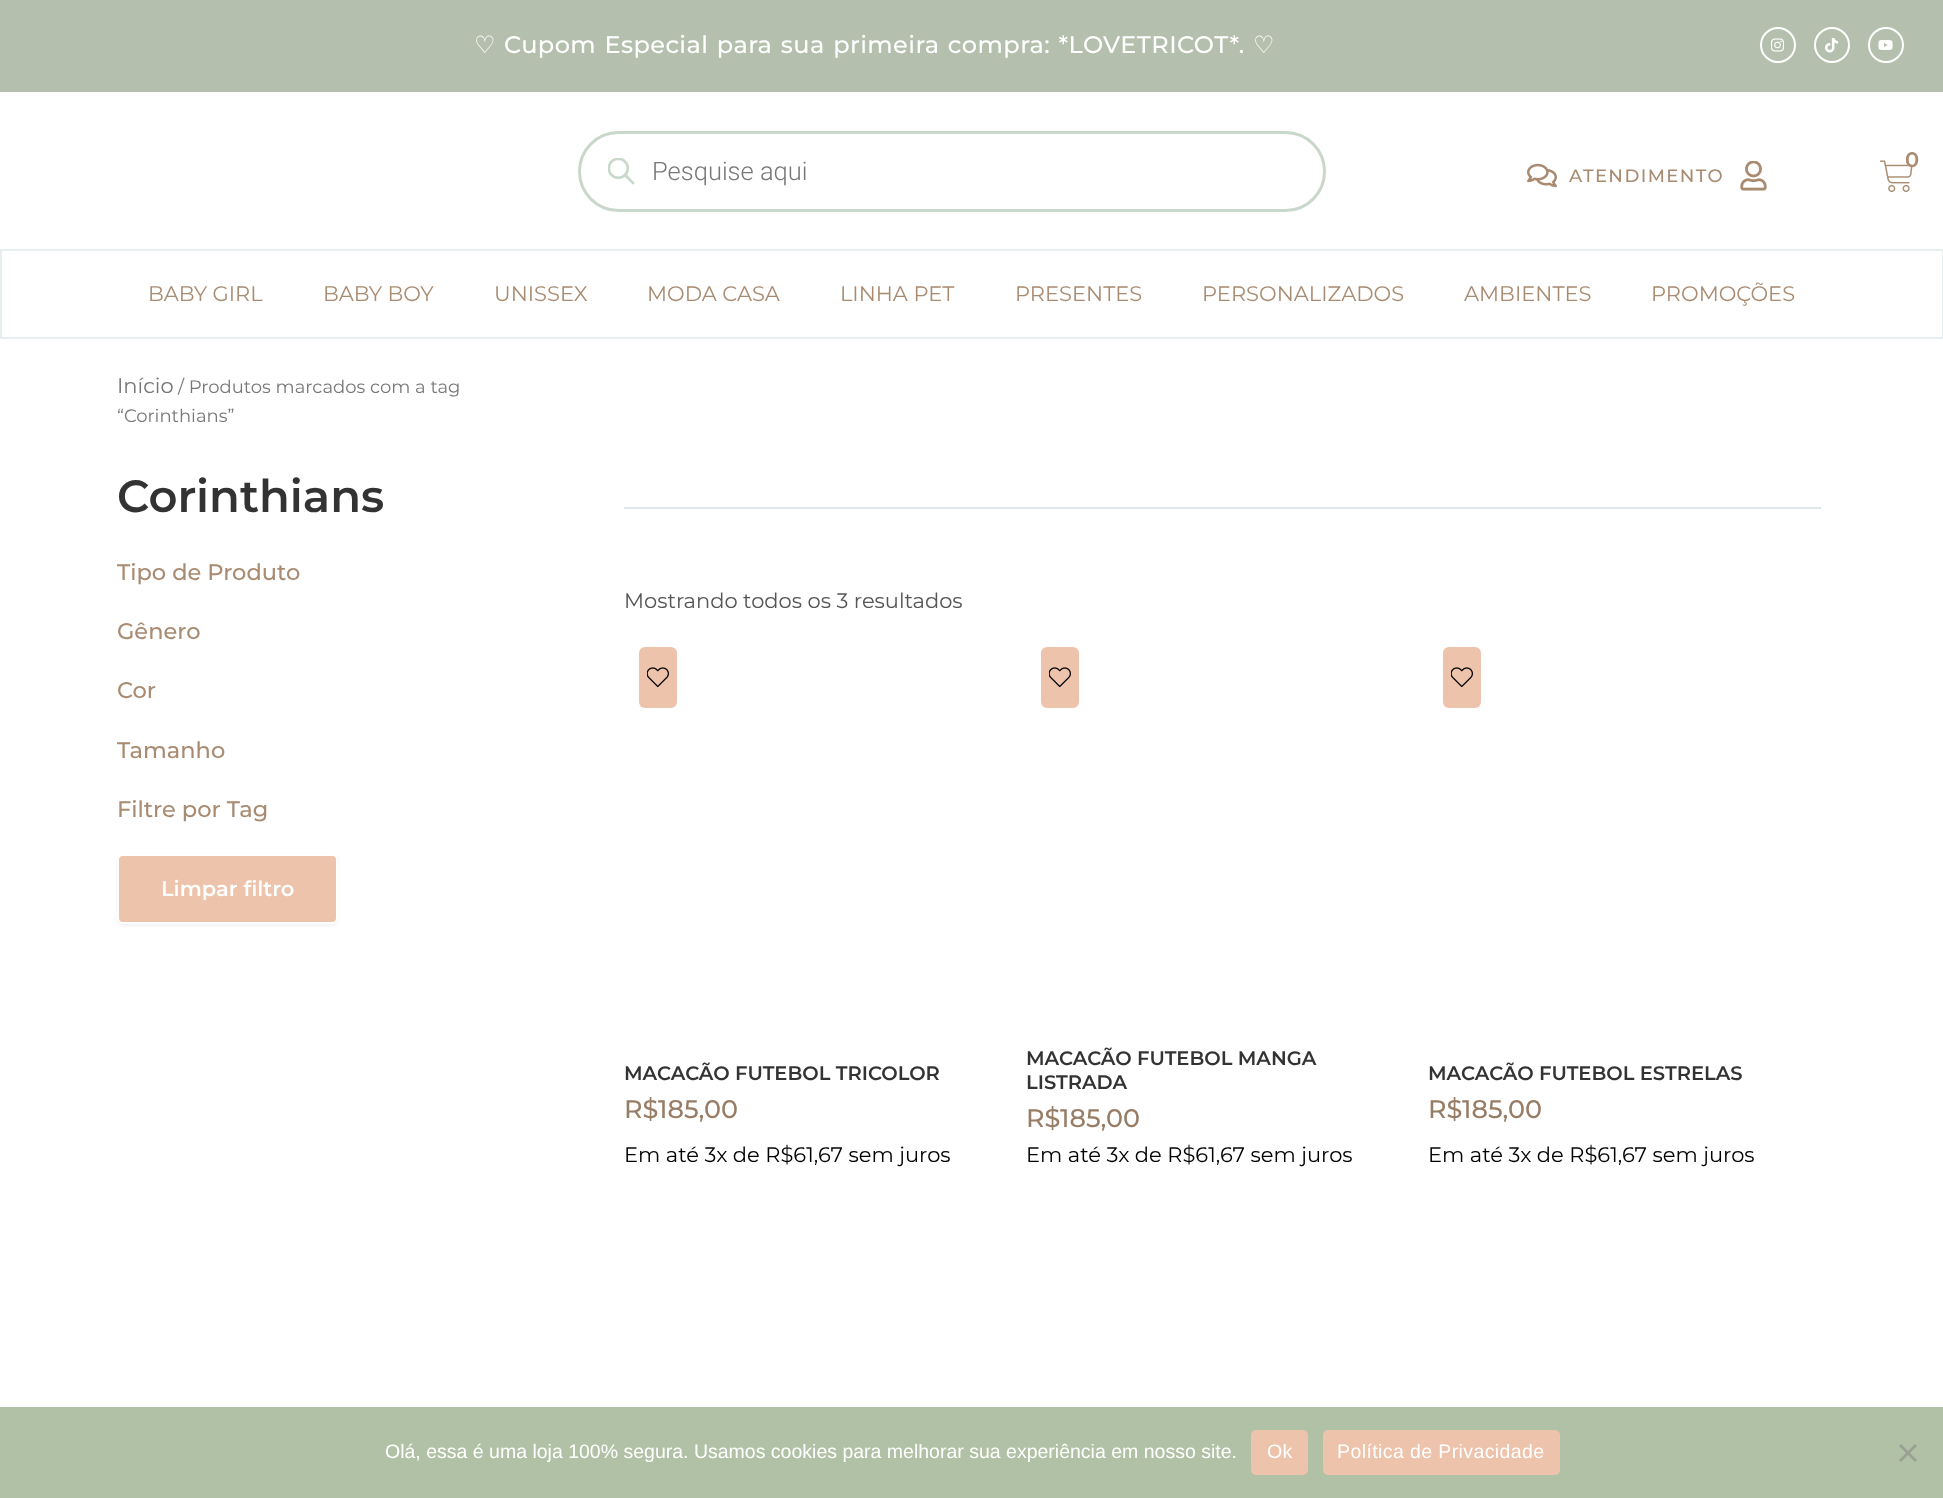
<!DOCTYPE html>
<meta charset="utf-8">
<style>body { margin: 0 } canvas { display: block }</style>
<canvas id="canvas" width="1943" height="1498"></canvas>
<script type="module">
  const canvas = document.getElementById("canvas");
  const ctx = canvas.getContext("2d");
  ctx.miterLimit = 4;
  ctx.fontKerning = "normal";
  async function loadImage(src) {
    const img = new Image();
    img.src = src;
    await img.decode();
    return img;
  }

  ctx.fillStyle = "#ffffff";
  ctx.fillRect(0, 0, 1943, 1498);
  ctx.fillStyle = "#b5bfae";
  ctx.fillRect(0, 0, 1943, 92);
  ctx.letterSpacing = "0.45px";
  ctx.font = "24px DejaVu Sans";
  ctx.fillStyle = "#ffffff";
  ctx.fillText("♡", 474, 53);
  ctx.wordSpacing = "1.5px";
  ctx.font = "500 24px Montserrat";
  ctx.fillText("Cupom Especial para sua primeira compra: *LOVETRICOT*.", 504, 53);
  ctx.wordSpacing = "0px";
  ctx.font = "24px DejaVu Sans";
  ctx.fillText("♡", 1253, 53);
  ctx.beginPath();
  ctx.arc(1778, 45, 17, 0, Math.PI * 2);
  ctx.strokeStyle = "#ffffff";
  ctx.lineWidth = 2;
  ctx.stroke();
  ctx.drawImage(await loadImage("img1.png"), 1771, 38, 13, 14);
  ctx.beginPath();
  ctx.arc(1832, 45, 17, 0, Math.PI * 2);
  ctx.stroke();
  ctx.drawImage(await loadImage("img2.png"), 1825, 38, 14, 15);
  ctx.beginPath();
  ctx.arc(1886, 45, 17, 0, Math.PI * 2);
  ctx.stroke();
  ctx.drawImage(await loadImage("img3.png"), 1878, 40, 15, 10);
  ctx.beginPath();
  ctx.roundRect(579.5, 132.5, 745, 78, 39);
  ctx.strokeStyle = "#c9d8cb";
  ctx.lineWidth = 3;
  ctx.stroke();
  ctx.drawImage(await loadImage("img4.png"), 608, 158, 27, 27);
  ctx.letterSpacing = "0px";
  ctx.font = "300 25.5px Roboto";
  ctx.fillStyle = "#777777";
  ctx.fillText("Pesquise aqui", 652, 180);
  ctx.drawImage(await loadImage("img5.png"), 1527, 163, 30, 25);
  ctx.letterSpacing = "1.4px";
  ctx.font = "500 18px Montserrat";
  ctx.fillStyle = "#a88b71";
  ctx.fillText("ATENDIMENTO", 1569, 182);
  ctx.drawImage(await loadImage("img6.png"), 1740, 161, 27, 30);
  ctx.drawImage(await loadImage("img7.png"), 1880, 160, 33, 32);
  ctx.letterSpacing = "0px";
  ctx.font = "600 21px Montserrat";
  ctx.fillText("0", 1905, 167);
  ctx.strokeStyle = "#e7eeef";
  ctx.lineWidth = 2;
  ctx.strokeRect(1, 250, 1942, 88);
  ctx.font = "21px Montserrat";
  ctx.fillText("BABY GIRL", 148, 301);
  ctx.fillText("BABY BOY", 323, 301);
  ctx.fillText("UNISSEX", 494, 301);
  ctx.fillText("MODA CASA", 647, 301);
  ctx.fillText("LINHA PET", 840, 301);
  ctx.fillText("PRESENTES", 1015, 301);
  ctx.fillText("PERSONALIZADOS", 1202, 301);
  ctx.fillText("AMBIENTES", 1464, 301);
  ctx.fillText("PROMOÇÕES", 1651, 301);
  ctx.fillStyle = "#777777";
  ctx.fillText("Início", 117, 393);
  ctx.font = "18px Montserrat";
  ctx.fillText("/ Produtos marcados com a tag", 178, 393);
  ctx.fillText("“Corinthians”", 117, 422);
  ctx.font = "600 45px Montserrat";
  ctx.fillStyle = "#343333";
  ctx.fillText("Corinthians", 117, 512);
  ctx.font = "500 22.5px Montserrat";
  ctx.fillStyle = "#a88b71";
  ctx.fillText("Tipo de Produto", 117, 580);
  ctx.fillText("Gênero", 117, 639);
  ctx.fillText("Cor", 117, 698);
  ctx.fillText("Tamanho", 117, 758);
  ctx.fillText("Filtre por Tag", 117, 817);
  ctx.fillStyle = "rgba(0, 0, 0, 0.05)";
  ctx.filter = "blur(1.5px)";
  ctx.beginPath();
  ctx.roundRect(117, 855, 221, 71, 6);
  ctx.fill();
  ctx.filter = "none";
  ctx.fillStyle = "#edc3ab";
  ctx.beginPath();
  ctx.roundRect(118, 855, 219, 68, 5);
  ctx.fill();
  ctx.strokeStyle = "#ffffff";
  ctx.stroke();
  ctx.font = "600 21px Montserrat";
  ctx.fillStyle = "#ffffff";
  ctx.fillText("Limpar filtro", 161, 896);
  ctx.fillStyle = "#dfe7e8";
  ctx.fillRect(624, 507, 1197, 2);
  ctx.font = "21px Montserrat";
  ctx.fillStyle = "#565656";
  ctx.fillText("Mostrando todos os 3 resultados", 624, 608);
  ctx.fillStyle = "#edc3ab";
  ctx.beginPath();
  ctx.roundRect(639, 647, 38, 61, 6);
  ctx.fill();
  ctx.drawImage(await loadImage("img8.png"), 647, 667, 22, 21);
  ctx.font = "600 19.5px Montserrat";
  ctx.fillStyle = "#343333";
  ctx.fillText("MACACÃO FUTEBOL TRICOLOR", 624, 1080);
  ctx.font = "500 25.5px Montserrat";
  ctx.fillStyle = "#987d66";
  ctx.fillText("R$185,00", 624, 1118);
  ctx.font = "21px Montserrat";
  ctx.fillStyle = "#000000";
  ctx.fillText("Em até 3x de R$61,67 sem juros", 624, 1162);
  ctx.fillStyle = "#edc3ab";
  ctx.beginPath();
  ctx.roundRect(1041, 647, 38, 61, 6);
  ctx.fill();
  ctx.drawImage(await loadImage("img8.png"), 1049, 667, 22, 21);
  ctx.font = "600 19.5px Montserrat";
  ctx.fillStyle = "#343333";
  ctx.fillText("MACACÃO FUTEBOL MANGA", 1026, 1065);
  ctx.fillText("LISTRADA", 1026, 1089);
  ctx.font = "500 25.5px Montserrat";
  ctx.fillStyle = "#987d66";
  ctx.fillText("R$185,00", 1026, 1127);
  ctx.font = "21px Montserrat";
  ctx.fillStyle = "#000000";
  ctx.fillText("Em até 3x de R$61,67 sem juros", 1026, 1162);
  ctx.fillStyle = "#edc3ab";
  ctx.beginPath();
  ctx.roundRect(1443, 647, 38, 61, 6);
  ctx.fill();
  ctx.drawImage(await loadImage("img8.png"), 1451, 667, 22, 21);
  ctx.font = "600 19.5px Montserrat";
  ctx.fillStyle = "#343333";
  ctx.fillText("MACACÃO FUTEBOL ESTRELAS", 1428, 1080);
  ctx.font = "500 25.5px Montserrat";
  ctx.fillStyle = "#987d66";
  ctx.fillText("R$185,00", 1428, 1118);
  ctx.font = "21px Montserrat";
  ctx.fillStyle = "#000000";
  ctx.fillText("Em até 3x de R$61,67 sem juros", 1428, 1162);
  ctx.drawImage(await loadImage("img9.png"), 0, 1398, 1943, 9);
  ctx.fillStyle = "#b1c1a6";
  ctx.fillRect(0, 1407, 1943, 91);
  ctx.font = "19.5px Liberation Sans";
  ctx.fillStyle = "#ffffff";
  ctx.fillText("Olá, essa é uma loja 100% segura. Usamos cookies para melhorar sua experiência em nosso site.", 385, 1458);
  ctx.fillStyle = "#edc3ab";
  ctx.beginPath();
  ctx.roundRect(1251, 1430, 57, 45, 5);
  ctx.fill();
  ctx.letterSpacing = "0.4px";
  ctx.fillStyle = "#ffffff";
  ctx.fillText("Ok", 1267, 1458);
  ctx.fillStyle = "#edc3ab";
  ctx.beginPath();
  ctx.roundRect(1323, 1430, 237, 45, 5);
  ctx.fill();
  ctx.fillStyle = "#ffffff";
  ctx.fillText("Política de Privacidade", 1337, 1458);
  ctx.fillStyle = "#99a193";
  ctx.beginPath();
  ctx.moveTo(1915, 1444);
  ctx.lineTo(1917, 1446);
  ctx.lineTo(1901, 1462);
  ctx.lineTo(1899, 1460);
  ctx.closePath();
  ctx.fill();
  ctx.beginPath();
  ctx.moveTo(1899, 1446);
  ctx.lineTo(1901, 1444);
  ctx.lineTo(1917, 1460);
  ctx.lineTo(1915, 1462);
  ctx.closePath();
  ctx.fill();
</script>
